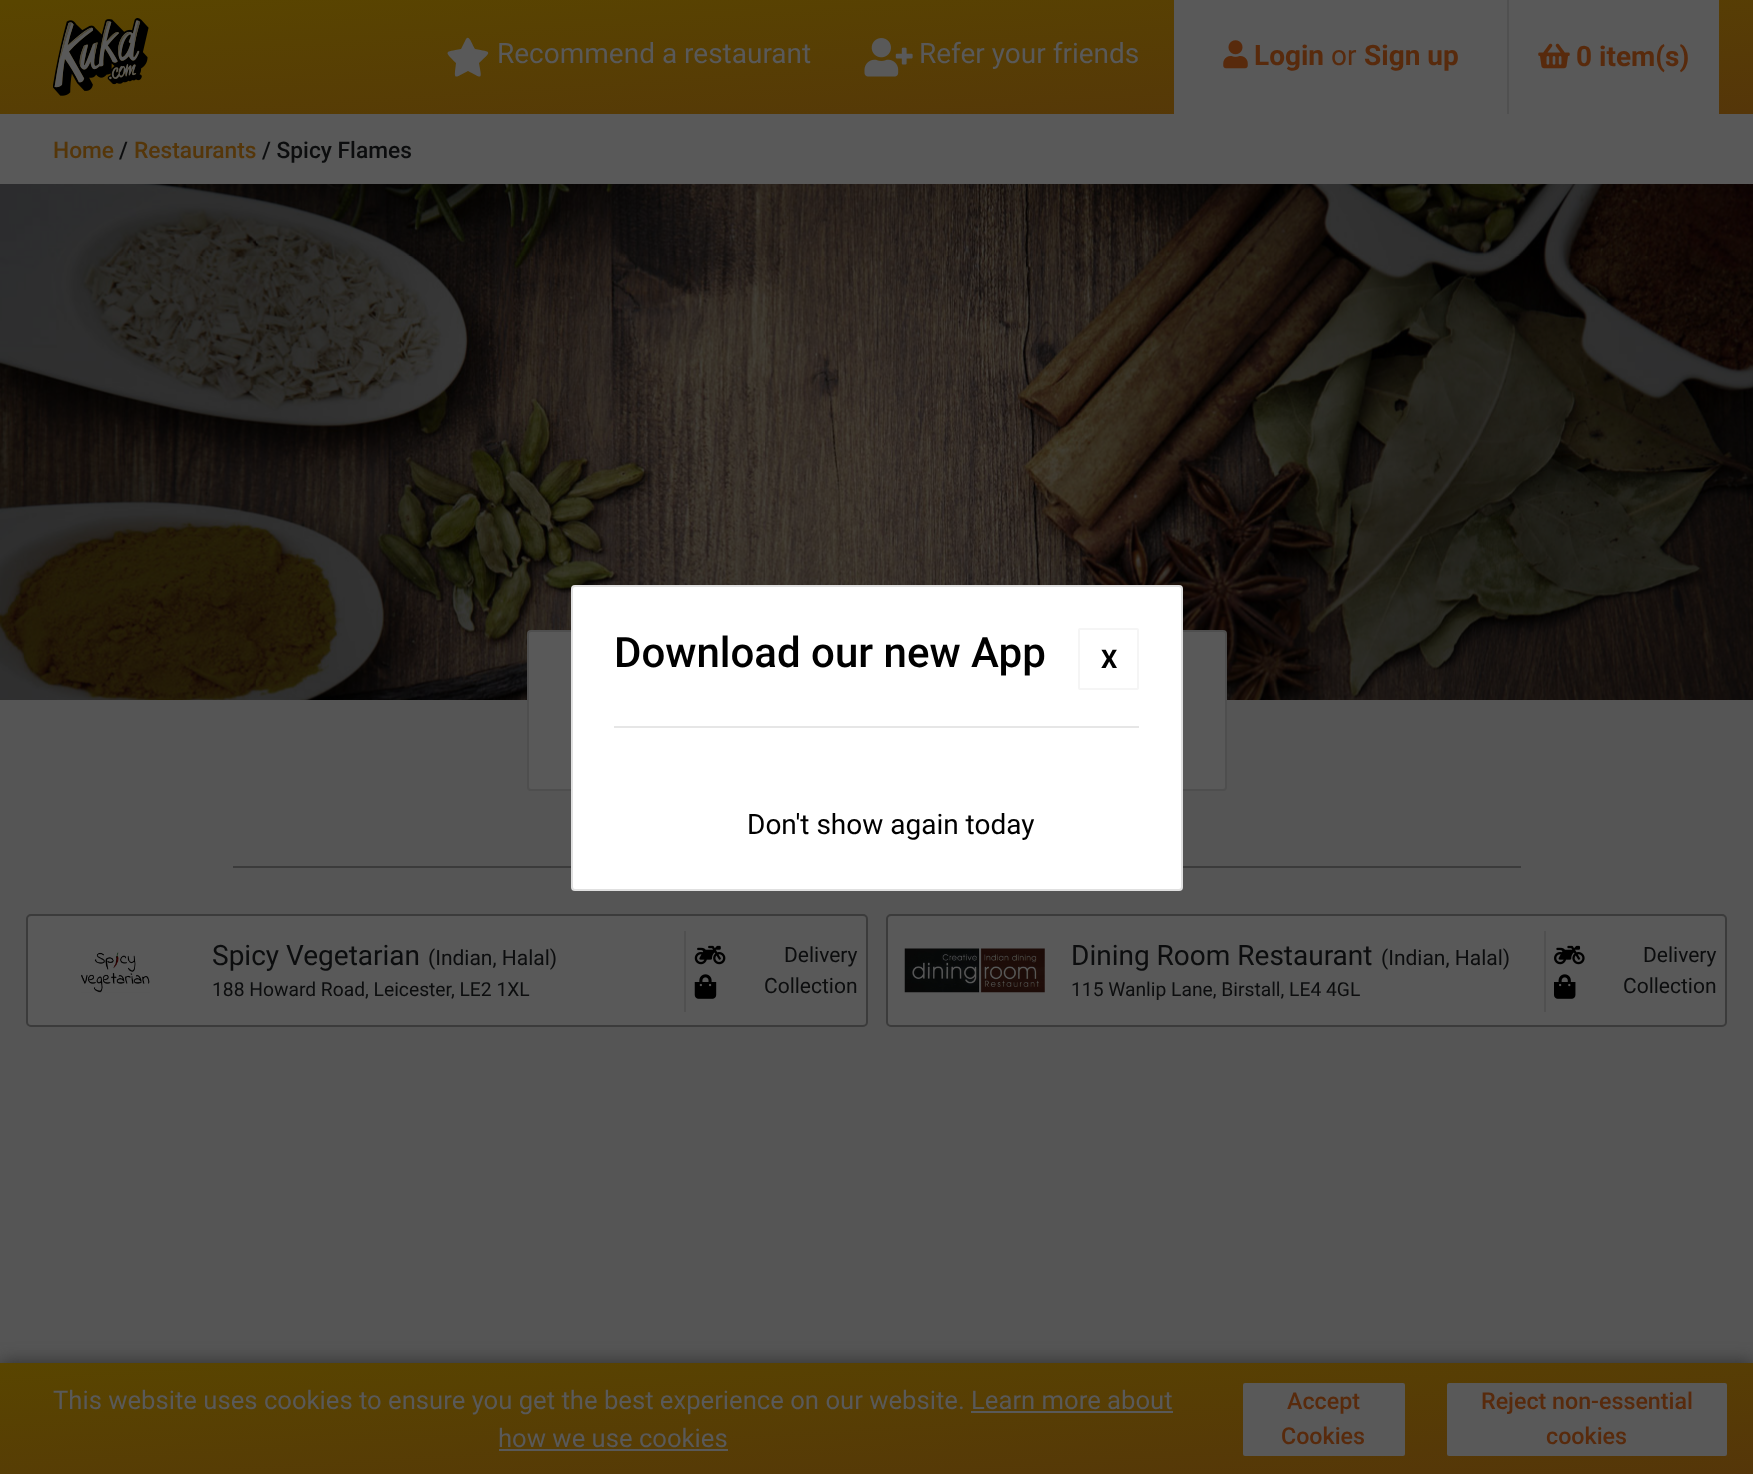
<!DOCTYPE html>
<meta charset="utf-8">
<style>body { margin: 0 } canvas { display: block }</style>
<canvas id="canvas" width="1753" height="1474"></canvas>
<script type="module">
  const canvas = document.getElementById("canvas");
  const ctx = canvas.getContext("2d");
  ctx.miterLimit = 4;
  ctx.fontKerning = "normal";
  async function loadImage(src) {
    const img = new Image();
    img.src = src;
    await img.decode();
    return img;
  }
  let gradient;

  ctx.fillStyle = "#555555";
  ctx.fillRect(0, 0, 1753, 1474);
  gradient = ctx.createLinearGradient(869, -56, 884, 170);
  gradient.addColorStop(0, "#594500");
  gradient.addColorStop(1, "#553609");
  ctx.fillStyle = gradient;
  ctx.fillRect(0, 0, 1753, 114);
  ctx.drawImage(await loadImage("img1.png"), 53, 18, 96, 78);
  ctx.fillStyle = "#595959";
  ctx.beginPath();
  ctx.moveTo(466, 39);
  ctx.lineTo(461, 49);
  ctx.bezierCurveTo(444, 52, 444, 51, 456, 63);
  ctx.bezierCurveTo(454, 80, 453, 79, 468, 71);
  ctx.bezierCurveTo(483, 79, 482, 80, 479, 63);
  ctx.bezierCurveTo(492, 51, 492, 52, 475, 49);
  ctx.bezierCurveTo(472, 44, 469, 34, 466, 39);
  ctx.closePath();
  ctx.fill();
  ctx.font = "28px Roboto";
  ctx.fillText("Recommend a restaurant", 497, 63);
  ctx.drawImage(await loadImage("img2.png"), 864, 38, 49, 39);
  ctx.fillText("Refer your friends", 919, 63);
  ctx.fillRect(1174, 0, 333, 114);
  ctx.drawImage(await loadImage("img3.png"), 1223, 40, 25, 29);
  ctx.font = "bold 28px Roboto";
  ctx.fillStyle = "#582a0c";
  ctx.fillText("Login", 1254, 65);
  ctx.font = "28px Roboto";
  ctx.fillText("or", 1331, 65);
  ctx.font = "bold 28px Roboto";
  ctx.fillText("Sign up", 1364, 65);
  ctx.fillStyle = "#595959";
  ctx.fillRect(1509, 0, 210, 114);
  ctx.fillStyle = "#505050";
  ctx.fillRect(1507, 0, 2, 114);
  ctx.drawImage(await loadImage("img4.png"), 1538, 43, 32, 26);
  ctx.fillStyle = "#582a0c";
  ctx.fillText("0 item(s)", 1576, 66);
  ctx.fillStyle = "#595959";
  ctx.fillRect(0, 114, 1753, 70);
  ctx.font = "500 22.75px Roboto";
  ctx.fillStyle = "#553609";
  ctx.fillText("Home", 53, 158);
  ctx.fillStyle = "#0c0d0e";
  ctx.fillText("/", 119, 158);
  ctx.fillStyle = "#553609";
  ctx.fillText("Restaurants", 134, 158);
  ctx.fillStyle = "#0c0d0e";
  ctx.fillText("/ Spicy Flames", 262, 158);
  ctx.drawImage(await loadImage("img5.png"), 0, 184, 1753, 516);
  ctx.fillStyle = "#595959";
  ctx.beginPath();
  ctx.roundRect(527, 630, 700, 161, 4);
  ctx.fill();
  ctx.beginPath();
  ctx.roundRect(528, 631, 698, 159, 3);
  ctx.strokeStyle = "rgba(0, 0, 0, 0.12)";
  ctx.lineWidth = 2;
  ctx.stroke();
  ctx.fillStyle = "#3b3b3b";
  ctx.fillRect(233, 866, 1288, 2);
  ctx.fillStyle = "#ffffff";
  ctx.beginPath();
  ctx.roundRect(571, 585, 612, 306, 4);
  ctx.fill();
  ctx.beginPath();
  ctx.roundRect(572, 586, 610, 304, 3);
  ctx.stroke();
  ctx.font = "500 42px Roboto";
  ctx.fillStyle = "#000000";
  ctx.fillText("Download our new App", 614, 667);
  ctx.beginPath();
  ctx.roundRect(1079, 629, 59, 60, 1);
  ctx.strokeStyle = "#f5f5f5";
  ctx.stroke();
  ctx.font = "bold 25.65px Roboto";
  ctx.fillText("X", 1101, 668);
  ctx.fillStyle = "#e6e6e6";
  ctx.fillRect(614, 726, 525, 2);
  ctx.font = "28px Roboto";
  ctx.fillStyle = "#000000";
  ctx.fillText("Don't show again today", 747, 834);
  ctx.fillStyle = "#595959";
  ctx.beginPath();
  ctx.roundRect(27, 915, 840, 111, 4);
  ctx.fill();
  ctx.strokeStyle = "#3b3b3b";
  ctx.stroke();
  ctx.drawImage(await loadImage("img6.png"), 81, 952, 69, 41);
  ctx.fillStyle = "#0c0d0e";
  ctx.fillText("Spicy Vegetarian", 212, 965);
  ctx.font = "21px Roboto";
  ctx.fillText("(Indian, Halal)", 428, 965);
  ctx.font = "19.25px Roboto";
  ctx.fillText("188 Howard Road, Leicester, LE2 1XL", 212, 996);
  ctx.fillStyle = "#505050";
  ctx.fillRect(684, 931, 2, 81);
  ctx.drawImage(await loadImage("img7.png"), 694, 945, 32, 20);
  ctx.font = "21px Roboto";
  ctx.fillStyle = "#0c0d0e";
  ctx.fillText("Delivery", 784, 962);
  ctx.drawImage(await loadImage("img8.png"), 694, 974, 23, 25);
  ctx.fillText("Collection", 764, 993);
  ctx.fillStyle = "#595959";
  ctx.beginPath();
  ctx.roundRect(887, 915, 839, 111, 4);
  ctx.fill();
  ctx.stroke();
  ctx.drawImage(await loadImage("img9.png"), 904, 948, 141, 45);
  ctx.font = "28px Roboto";
  ctx.fillStyle = "#0c0d0e";
  ctx.fillText("Dining Room Restaurant", 1071, 965);
  ctx.font = "21px Roboto";
  ctx.fillText("(Indian, Halal)", 1381, 965);
  ctx.font = "19.25px Roboto";
  ctx.fillText("115 Wanlip Lane, Birstall, LE4 4GL", 1071, 996);
  ctx.fillStyle = "#505050";
  ctx.fillRect(1544, 931, 2, 81);
  ctx.drawImage(await loadImage("img10.png"), 1554, 945, 31, 20);
  ctx.font = "21px Roboto";
  ctx.fillStyle = "#0c0d0e";
  ctx.fillText("Delivery", 1643, 962);
  ctx.drawImage(await loadImage("img11.png"), 1554, 974, 22, 25);
  ctx.fillText("Collection", 1623, 993);
  ctx.fillStyle = "#2d2d2d";
  ctx.filter = "blur(9px)";
  ctx.beginPath();
  ctx.rect(0, 1363, 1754, 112);
  ctx.fill();
  ctx.filter = "none";
  gradient = ctx.createLinearGradient(870, 1308, 884, 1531);
  gradient.addColorStop(0, "#594500");
  gradient.addColorStop(1, "#553609");
  ctx.fillStyle = gradient;
  ctx.fillRect(0, 1363, 1753, 111);
  ctx.font = "25.65px Roboto";
  ctx.fillStyle = "#595959";
  ctx.fillText("This website uses cookies to ensure you get the best experience on our website. Learn more about", 53, 1409);
  ctx.fillText("how we use cookies", 498, 1447);
  ctx.fillRect(971, 1411, 202, 2);
  ctx.fillRect(499, 1449, 229, 2);
  ctx.beginPath();
  ctx.roundRect(1243, 1383, 162, 73, 2);
  ctx.fill();
  ctx.font = "500 23.25px Roboto";
  ctx.fillStyle = "#582a0c";
  ctx.fillText("Accept", 1287, 1409);
  ctx.fillText("Cookies", 1281, 1444);
  ctx.fillStyle = "#595959";
  ctx.beginPath();
  ctx.roundRect(1447, 1383, 280, 73, 2);
  ctx.fill();
  ctx.fillStyle = "#582a0c";
  ctx.fillText("Reject non-essential", 1481, 1409);
  ctx.fillText("cookies", 1546, 1444);
</script>
